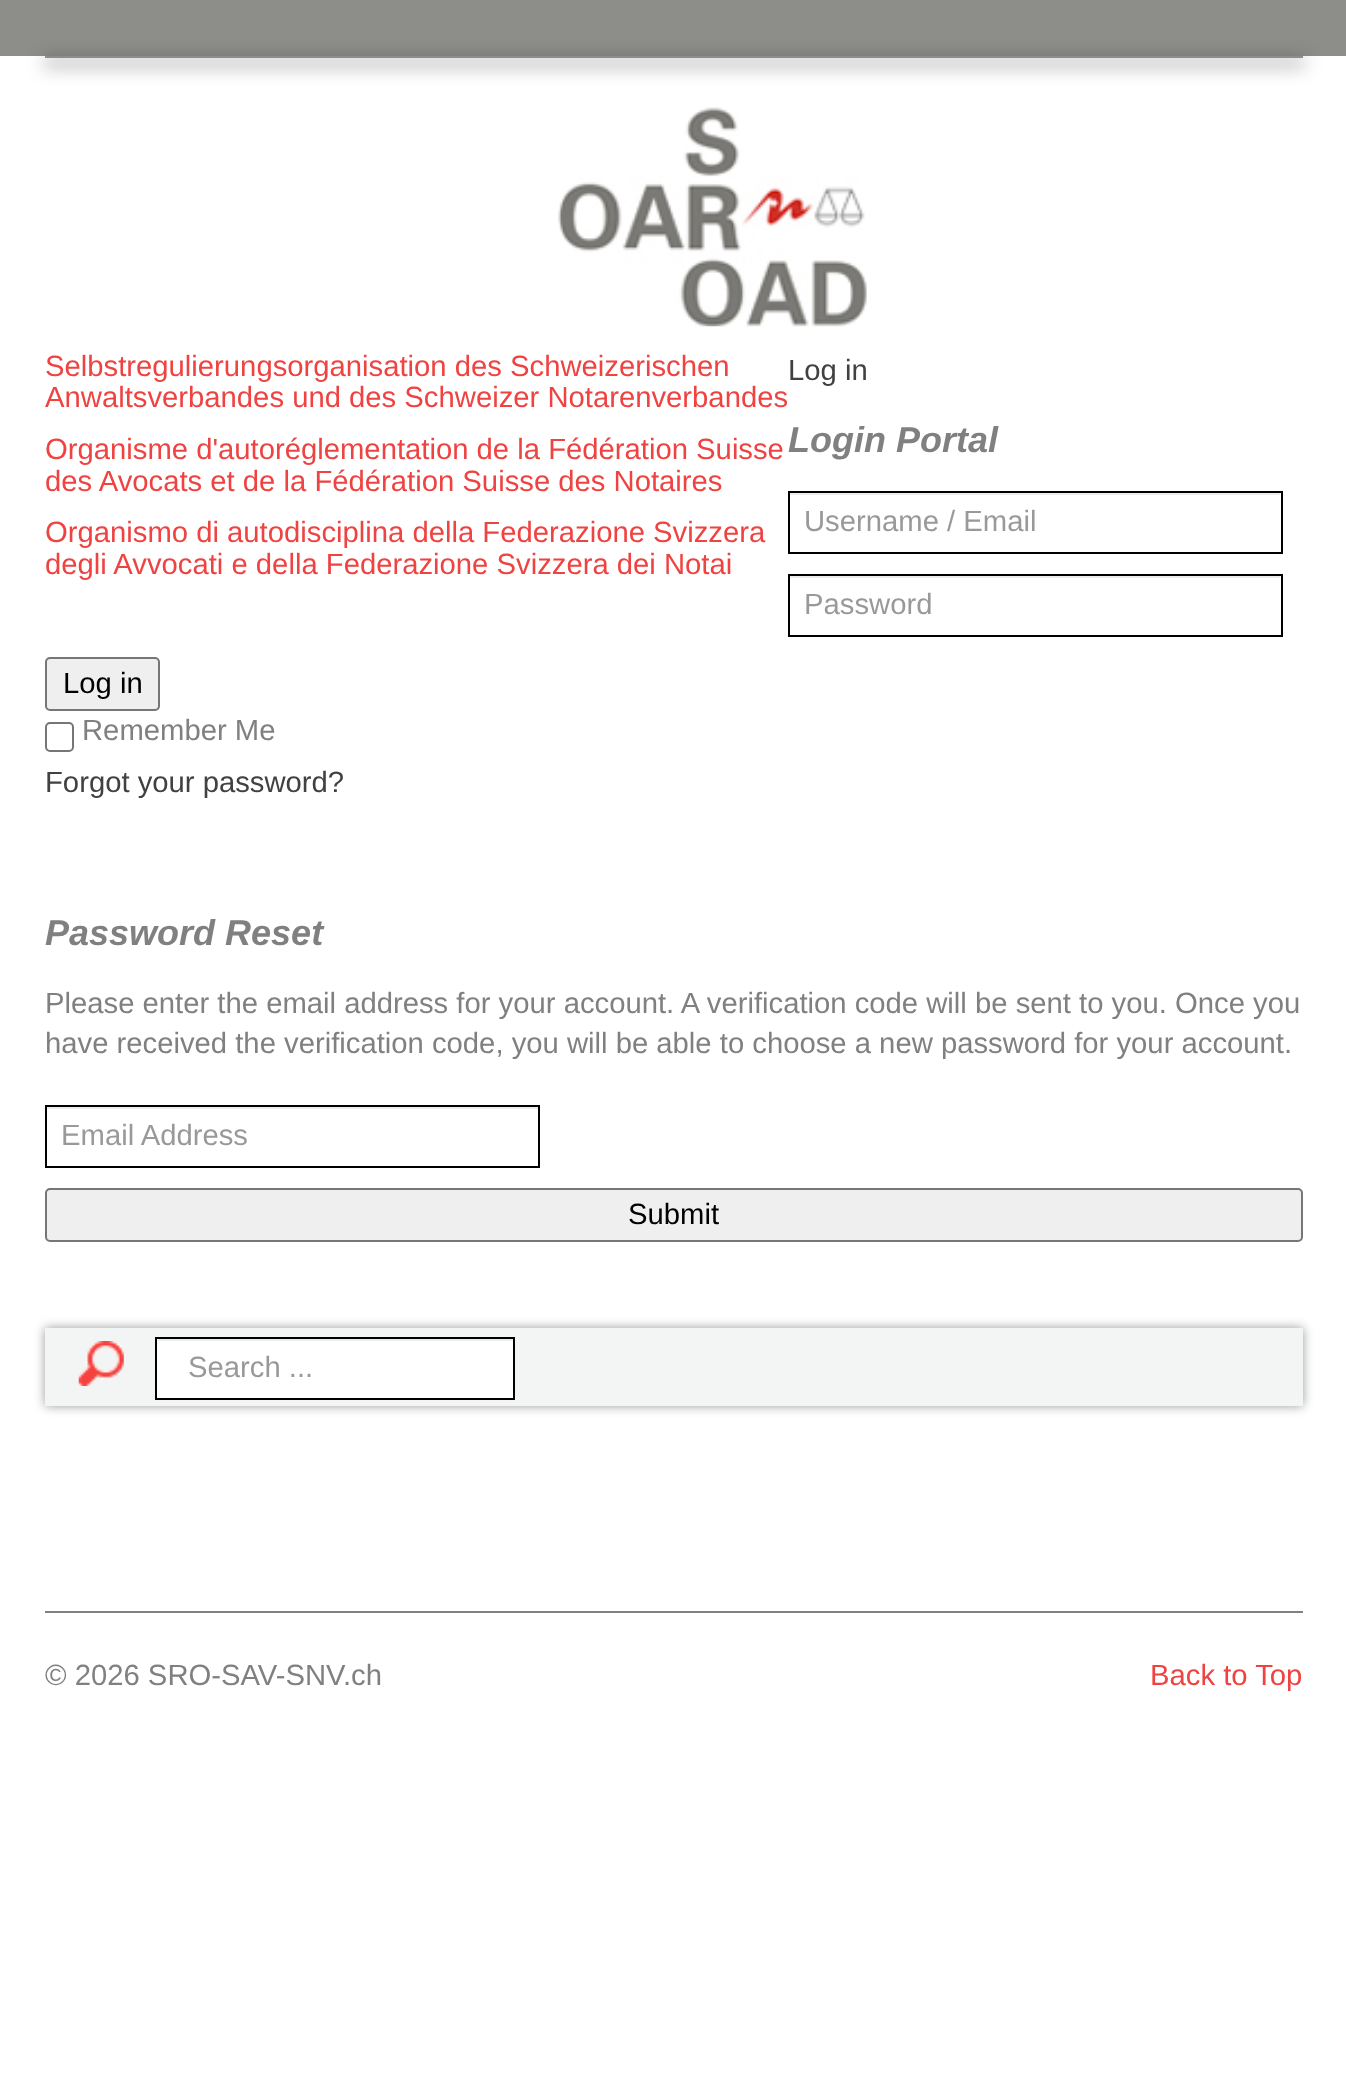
<!DOCTYPE html>
<meta charset="utf-8">
<style>body { margin: 0 } canvas { display: block }</style>
<canvas id="canvas" width="1346" height="2094"></canvas>
<script type="module">
  const canvas = document.getElementById("canvas");
  const ctx = canvas.getContext("2d");
  ctx.miterLimit = 4;
  ctx.fontKerning = "normal";
  async function loadImage(src) {
    const img = new Image();
    img.src = src;
    await img.decode();
    return img;
  }

  ctx.fillStyle = "#ffffff";
  ctx.fillRect(0, 0, 1346, 2094);
  ctx.fillStyle = "#8d8e89";
  ctx.fillRect(0, 0, 1346, 56);
  ctx.fillStyle = "rgba(0, 0, 0, 0.4)";
  ctx.filter = "blur(9px)";
  ctx.beginPath();
  ctx.rect(43, 59, 1262, 7);
  ctx.fill();
  ctx.filter = "none";
  ctx.fillStyle = "#8d8e89";
  ctx.fillRect(45, 56, 1258, 2);
  ctx.drawImage(await loadImage("img1.png"), 558, 107, 309, 220);
  ctx.font = "29.25px Liberation Sans";
  ctx.fillStyle = "#ef4342";
  ctx.fillText("Selbstregulierungsorganisation des Schweizerischen", 45, 376);
  ctx.fillText("Anwaltsverbandes und des Schweizer Notarenverbandes", 45, 407);
  ctx.fillText("Organisme d'autoréglementation de la Fédération Suisse", 45, 459);
  ctx.fillText("des Avocats et de la Fédération Suisse des Notaires", 45, 491);
  ctx.fillText("Organismo di autodisciplina della Federazione Svizzera", 45, 542);
  ctx.fillText("degli Avvocati e della Federazione Svizzera dei Notai", 45, 574);
  ctx.fillStyle = "#414141";
  ctx.fillText("Log in", 788, 380);
  ctx.font = "italic bold 36px Liberation Sans";
  ctx.fillStyle = "#808080";
  ctx.fillText("Login Portal", 788, 452);
  ctx.fillStyle = "#ececec";
  ctx.fillRect(790, 493, 490, 2);
  ctx.strokeStyle = "#000000";
  ctx.lineWidth = 2;
  ctx.strokeRect(789, 492, 493, 61);
  ctx.font = "29.25px Liberation Sans";
  ctx.fillStyle = "#999999";
  ctx.fillText("Username / Email", 804, 531);
  ctx.fillStyle = "#ececec";
  ctx.fillRect(790, 576, 490, 2);
  ctx.strokeRect(789, 575, 493, 61);
  ctx.fillStyle = "#999999";
  ctx.fillText("Password", 804, 614);
  ctx.fillStyle = "#efefef";
  ctx.beginPath();
  ctx.roundRect(46, 658, 113, 52, 4);
  ctx.fill();
  ctx.strokeStyle = "#767676";
  ctx.stroke();
  ctx.fillStyle = "#000000";
  ctx.fillText("Log in", 63, 693);
  ctx.beginPath();
  ctx.roundRect(46, 723, 27, 28, 4);
  ctx.stroke();
  ctx.fillStyle = "#808080";
  ctx.fillText("Remember Me", 82, 740);
  ctx.fillStyle = "#414141";
  ctx.fillText("Forgot your password?", 45, 792);
  ctx.font = "italic bold 36px Liberation Sans";
  ctx.fillStyle = "#808080";
  ctx.fillText("Password Reset", 45, 945);
  ctx.font = "29.25px Liberation Sans";
  ctx.fillText("Please enter the email address for your account. A verification code will be sent to you. Once you", 45, 1013);
  ctx.fillText("have received the verification code, you will be able to choose a new password for your account.", 45, 1053);
  ctx.fillStyle = "#ececec";
  ctx.fillRect(47, 1107, 491, 2);
  ctx.strokeStyle = "#000000";
  ctx.strokeRect(46, 1106, 493, 61);
  ctx.fillStyle = "#999999";
  ctx.fillText("Email Address", 61, 1145);
  ctx.fillStyle = "#efefef";
  ctx.beginPath();
  ctx.roundRect(46, 1189, 1256, 52, 4);
  ctx.fill();
  ctx.strokeStyle = "#767676";
  ctx.stroke();
  ctx.fillStyle = "#000000";
  ctx.fillText("Submit", 628, 1224);
  ctx.fillStyle = "rgba(0, 0, 0, 0.4)";
  ctx.filter = "blur(5.5px)";
  ctx.beginPath();
  ctx.rect(45, 1328, 1258, 78);
  ctx.fill();
  ctx.filter = "none";
  ctx.fillStyle = "#f3f4f4";
  ctx.fillRect(45, 1328, 1258, 78);
  ctx.drawImage(await loadImage("img2.png"), 78, 1341, 46, 45);
  ctx.fillStyle = "#ffffff";
  ctx.fillRect(157, 1339, 356, 59);
  ctx.fillStyle = "#ececec";
  ctx.fillRect(158, 1339, 355, 2);
  ctx.strokeStyle = "#000000";
  ctx.strokeRect(156, 1338, 358, 61);
  ctx.fillStyle = "#999999";
  ctx.fillText("Search ...", 188, 1377);
  ctx.fillStyle = "#808080";
  ctx.fillRect(45, 1611, 1258, 2);
  ctx.fillText("© 2026 SRO-SAV-SNV.ch", 45, 1685);
  ctx.fillStyle = "#ef4342";
  ctx.fillText("Back to Top", 1150, 1685);
</script>
